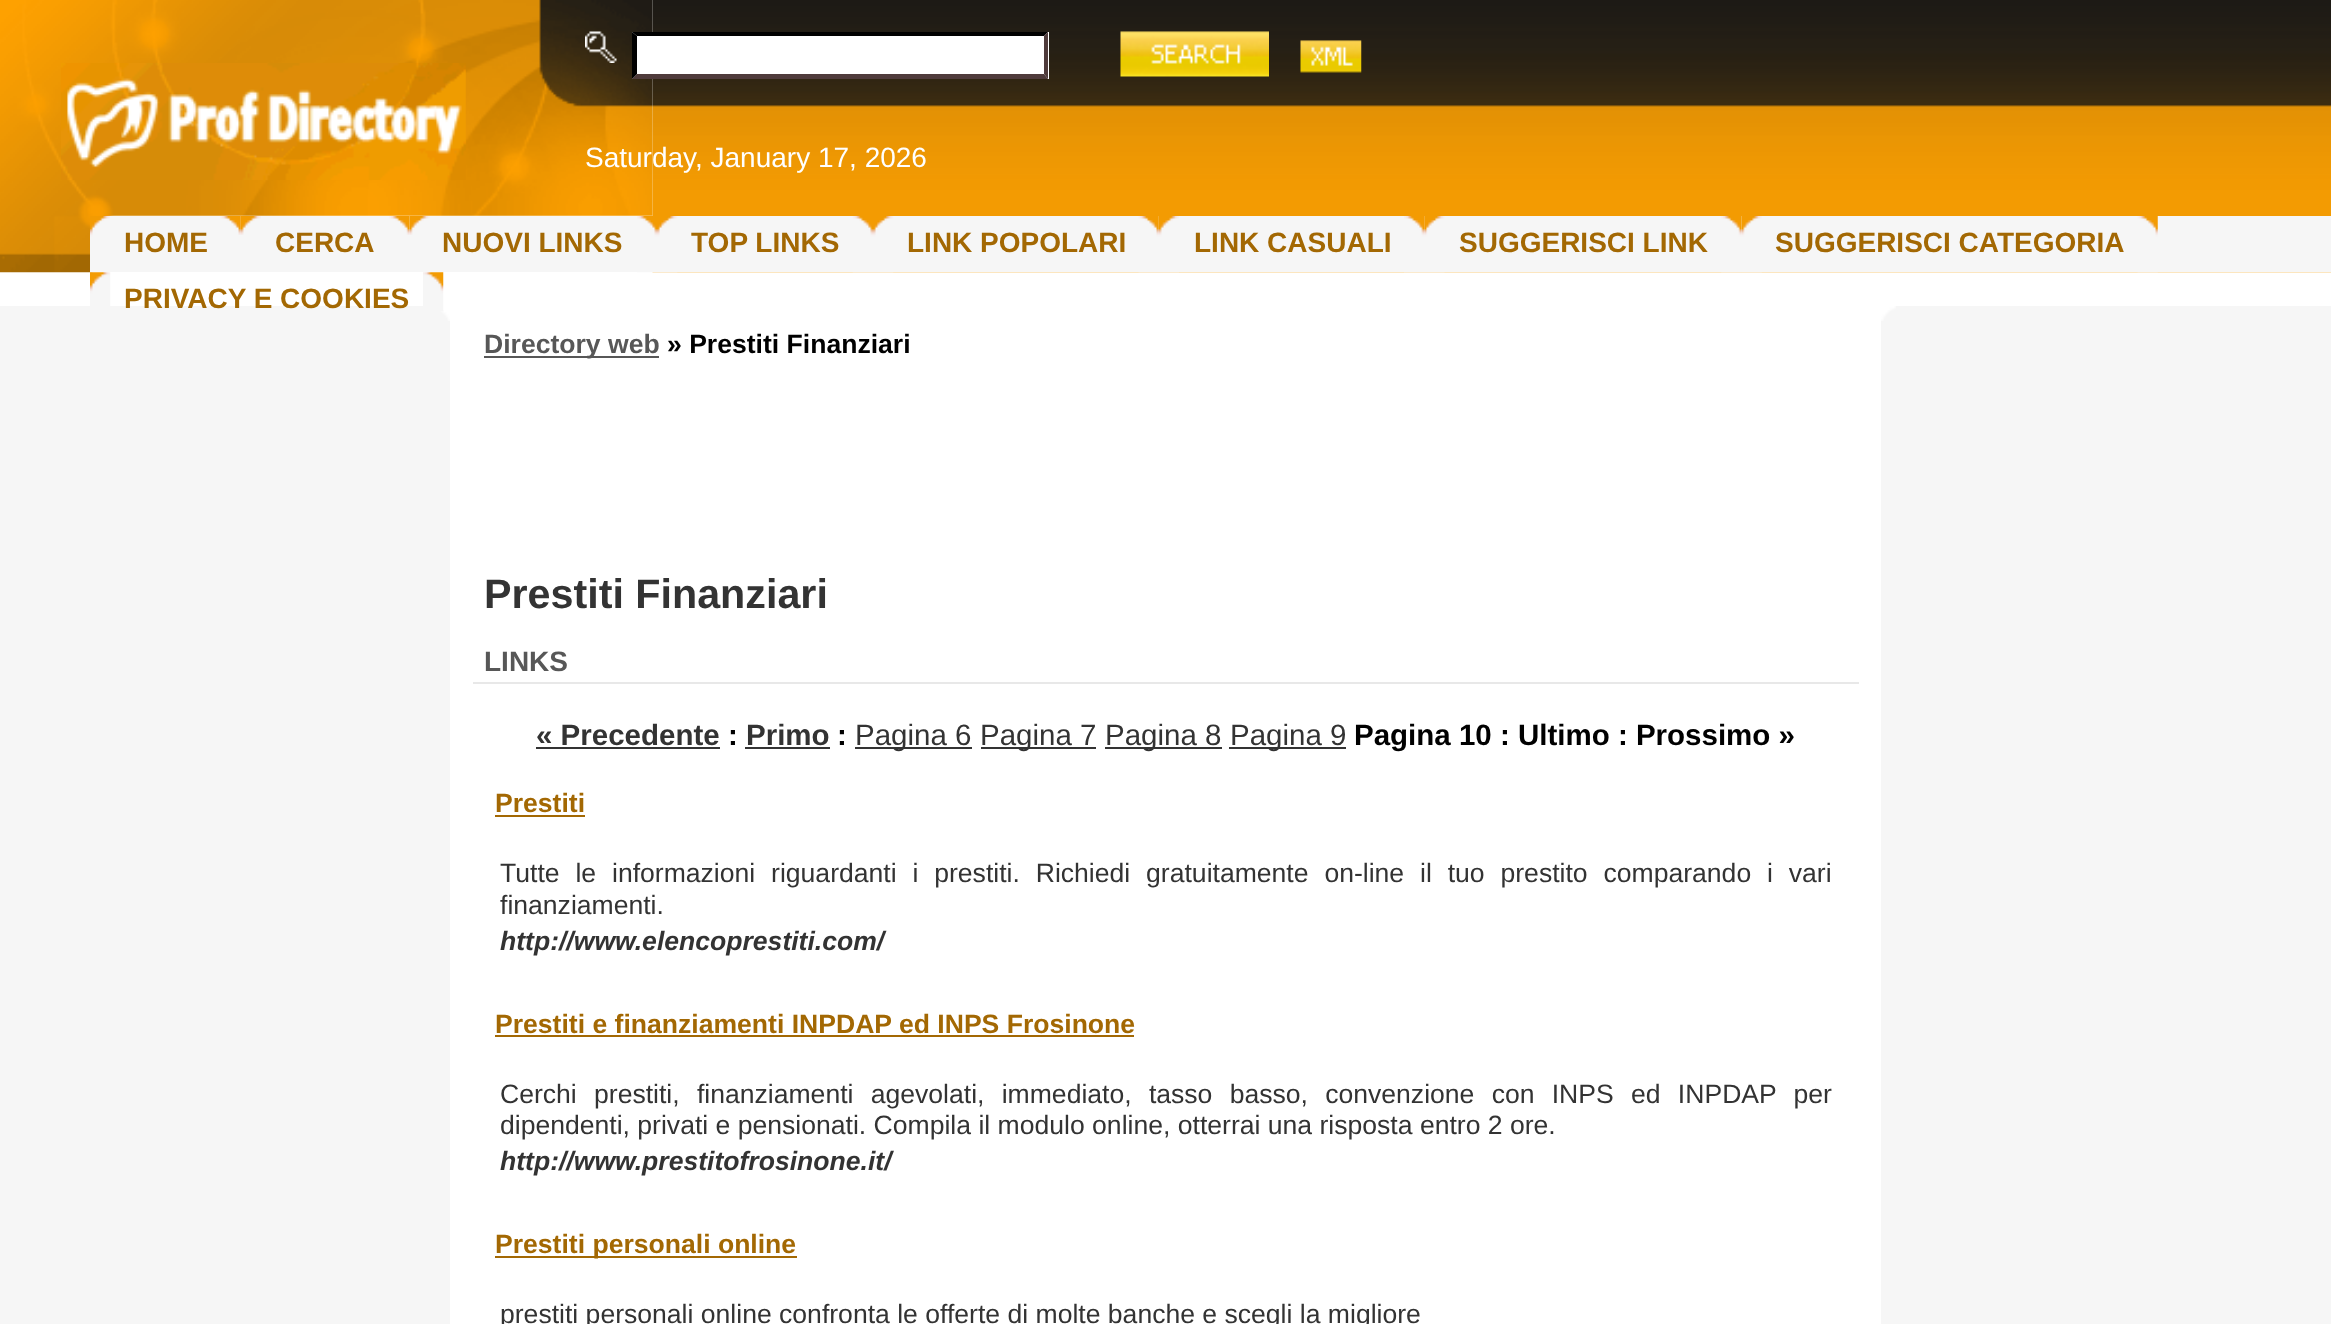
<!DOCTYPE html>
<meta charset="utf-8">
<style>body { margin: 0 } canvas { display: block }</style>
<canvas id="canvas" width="2331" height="1324"></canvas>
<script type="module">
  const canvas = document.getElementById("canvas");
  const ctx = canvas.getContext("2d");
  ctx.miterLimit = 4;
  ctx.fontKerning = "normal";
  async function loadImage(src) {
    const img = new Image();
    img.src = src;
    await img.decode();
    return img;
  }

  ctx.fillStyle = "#ffffff";
  ctx.fillRect(0, 0, 2331, 1324);
  ctx.drawImage(await loadImage("img1.png"), 0, 0, 653, 273);
  ctx.drawImage(await loadImage("img2.png"), 652, 0, 1679, 273);
  ctx.drawImage(await loadImage("img3.png"), 585, 31, 32, 32);
  ctx.fillRect(632, 32, 417, 47);
  ctx.fillStyle = "#000000";
  ctx.beginPath();
  ctx.moveTo(632, 32);
  ctx.lineTo(1048, 32);
  ctx.lineTo(1044, 36);
  ctx.lineTo(637, 36);
  ctx.closePath();
  ctx.fill();
  ctx.fillStyle = "#4f3b3b";
  ctx.beginPath();
  ctx.moveTo(1048, 32);
  ctx.lineTo(1048, 79);
  ctx.lineTo(1044, 74);
  ctx.lineTo(1044, 36);
  ctx.closePath();
  ctx.fill();
  ctx.beginPath();
  ctx.moveTo(1048, 79);
  ctx.lineTo(632, 79);
  ctx.lineTo(637, 74);
  ctx.lineTo(1044, 74);
  ctx.closePath();
  ctx.fill();
  ctx.fillStyle = "#000000";
  ctx.beginPath();
  ctx.moveTo(632, 79);
  ctx.lineTo(632, 32);
  ctx.lineTo(637, 36);
  ctx.lineTo(637, 74);
  ctx.closePath();
  ctx.fill();
  ctx.drawImage(await loadImage("img4.png"), 1120, 31, 149, 46);
  ctx.drawImage(await loadImage("img5.png"), 1300, 40, 62, 33);
  ctx.drawImage(await loadImage("img6.png"), 61, 63, 405, 117);
  ctx.font = "28px Liberation Sans";
  ctx.fillStyle = "#ffffff";
  ctx.fillText("Saturday, January 17, 2026", 585, 167);
  ctx.fillStyle = "#f6f6f6";
  ctx.fillRect(110, 216, 2221, 56);
  ctx.drawImage(await loadImage("img7.png"), 90, 216, 20, 57);
  ctx.drawImage(await loadImage("img8.png"), 220, 216, 21, 19);
  ctx.font = "bold 28px Liberation Sans";
  ctx.fillStyle = "#a36803";
  ctx.fillText("HOME", 124, 252);
  ctx.drawImage(await loadImage("img9.png"), 240, 216, 21, 19);
  ctx.drawImage(await loadImage("img10.png"), 389, 216, 21, 19);
  ctx.fillText("CERCA", 275, 252);
  ctx.drawImage(await loadImage("img11.png"), 409, 216, 21, 19);
  ctx.drawImage(await loadImage("img12.png"), 637, 216, 20, 57);
  ctx.fillText("NUOVI LINKS", 442, 252);
  ctx.drawImage(await loadImage("img13.png"), 657, 216, 21, 57);
  ctx.drawImage(await loadImage("img14.png"), 852, 216, 21, 57);
  ctx.fillText("TOP LINKS", 691, 252);
  ctx.drawImage(await loadImage("img15.png"), 873, 216, 21, 57);
  ctx.drawImage(await loadImage("img16.png"), 1138, 216, 21, 57);
  ctx.fillText("LINK POPOLARI", 907, 252);
  ctx.drawImage(await loadImage("img17.png"), 1158, 216, 21, 57);
  ctx.drawImage(await loadImage("img18.png"), 1404, 216, 21, 57);
  ctx.fillText("LINK CASUALI", 1194, 252);
  ctx.drawImage(await loadImage("img19.png"), 1424, 216, 21, 57);
  ctx.drawImage(await loadImage("img20.png"), 1721, 216, 21, 57);
  ctx.fillText("SUGGERISCI LINK", 1459, 252);
  ctx.drawImage(await loadImage("img21.png"), 1741, 216, 21, 57);
  ctx.drawImage(await loadImage("img16.png"), 2137, 216, 21, 57);
  ctx.fillText("SUGGERISCI CATEGORIA", 1775, 252);
  ctx.drawImage(await loadImage("img22.png"), 90, 272, 21, 34);
  ctx.fillStyle = "#f6f6f6";
  ctx.fillRect(0, 306, 428, 1018);
  ctx.fillRect(428, 311, 22, 1013);
  ctx.drawImage(await loadImage("img24.png"), 435, 306, 15, 15);
  ctx.drawImage(await loadImage("img23.png"), 423, 272, 21, 39);
  ctx.fillStyle = "#a36803";
  ctx.fillText("PRIVACY E COOKIES", 124, 308);
  ctx.fillStyle = "#575757";
  ctx.fillRect(484, 356, 175, 2);
  ctx.font = "bold 26.57px Liberation Sans";
  ctx.fillText("Directory web", 484, 353);
  ctx.fillStyle = "#000000";
  ctx.fillText("» Prestiti Finanziari", 667, 353);
  ctx.font = "bold 41.25px Liberation Sans";
  ctx.fillStyle = "#333333";
  ctx.fillText("Prestiti Finanziari", 484, 608);
  ctx.fillStyle = "#e8e8e8";
  ctx.fillRect(473, 682, 1386, 2);
  ctx.font = "bold 28px Liberation Sans";
  ctx.fillStyle = "#575757";
  ctx.fillText("LINKS", 484, 671);
  ctx.font = "bold 29.5px Liberation Sans";
  ctx.fillStyle = "#333333";
  ctx.fillText("« Precedente", 536, 745);
  ctx.fillRect(536, 747, 184, 2);
  ctx.fillStyle = "#000000";
  ctx.fillText(":", 728, 745);
  ctx.fillStyle = "#333333";
  ctx.fillText("Primo", 746, 745);
  ctx.fillRect(745, 747, 85, 2);
  ctx.fillStyle = "#000000";
  ctx.fillText(":", 837, 745);
  ctx.fillStyle = "#333333";
  ctx.fillRect(855, 747, 117, 2);
  ctx.font = "29.5px Liberation Sans";
  ctx.fillText("Pagina 6", 855, 745);
  ctx.fillRect(981, 747, 115, 2);
  ctx.fillText("Pagina 7", 980, 745);
  ctx.fillRect(1105, 747, 117, 2);
  ctx.fillText("Pagina 8", 1105, 745);
  ctx.fillRect(1229, 747, 117, 2);
  ctx.fillText("Pagina 9", 1230, 745);
  ctx.font = "bold 29.5px Liberation Sans";
  ctx.fillStyle = "#000000";
  ctx.fillText("Pagina 10 : Ultimo : Prossimo »", 1354, 745);
  ctx.font = "bold 26.57px Liberation Sans";
  ctx.fillStyle = "#a36803";
  ctx.fillText("Prestiti", 495, 812);
  ctx.fillRect(495, 815, 90, 2);
  ctx.wordSpacing = "8.5px";
  ctx.font = "26.57px Liberation Sans";
  ctx.fillStyle = "#333333";
  ctx.fillText("Tutte le informazioni riguardanti i prestiti. Richiedi gratuitamente on-line il tuo prestito comparando i vari", 500, 882);
  ctx.wordSpacing = "0px";
  ctx.fillText("finanziamenti.", 500, 914);
  ctx.font = "italic bold 26.57px Liberation Sans";
  ctx.fillText("http://www.elencoprestiti.com/", 500, 950);
  ctx.font = "bold 26.57px Liberation Sans";
  ctx.fillStyle = "#a36803";
  ctx.fillText("Prestiti e finanziamenti INPDAP ed INPS Frosinone", 495, 1033);
  ctx.fillRect(495, 1035, 639, 2);
  ctx.wordSpacing = "9.9px";
  ctx.font = "26.57px Liberation Sans";
  ctx.fillStyle = "#333333";
  ctx.fillText("Cerchi prestiti, finanziamenti agevolati, immediato, tasso basso, convenzione con INPS ed INPDAP per", 500, 1103);
  ctx.wordSpacing = "0px";
  ctx.fillText("dipendenti, privati e pensionati. Compila il modulo online, otterrai una risposta entro 2 ore.", 500, 1134);
  ctx.font = "italic bold 26.57px Liberation Sans";
  ctx.fillText("http://www.prestitofrosinone.it/", 500, 1170);
  ctx.fillStyle = "#a36803";
  ctx.fillRect(495, 1256, 302, 2);
  ctx.font = "bold 26.57px Liberation Sans";
  ctx.fillText("Prestiti personali online", 495, 1253);
  ctx.font = "26.57px Liberation Sans";
  ctx.fillStyle = "#333333";
  ctx.fillText("prestiti personali online confronta le offerte di molte banche e scegli la migliore", 500, 1323);
  ctx.fillStyle = "#f6f6f6";
  ctx.fillRect(1881, 306, 450, 1018);
  ctx.drawImage(await loadImage("img25.png"), 1881, 306, 15, 15);
</script>
